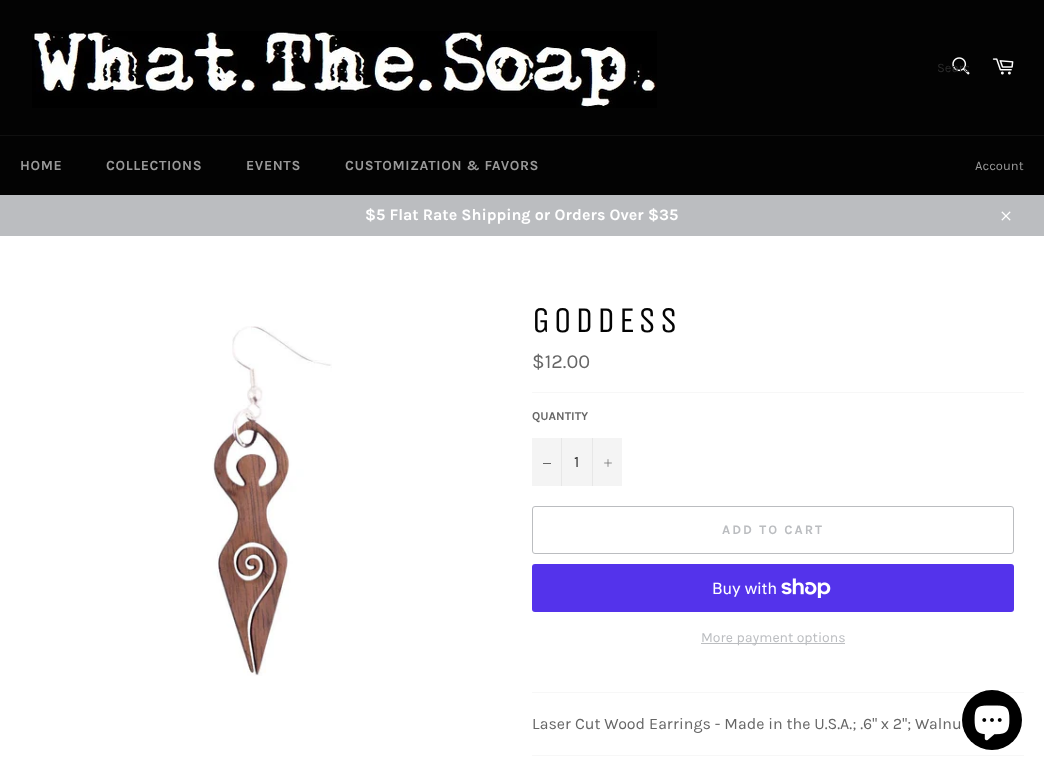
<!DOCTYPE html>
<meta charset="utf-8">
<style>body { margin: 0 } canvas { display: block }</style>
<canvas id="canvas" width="1044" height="771"></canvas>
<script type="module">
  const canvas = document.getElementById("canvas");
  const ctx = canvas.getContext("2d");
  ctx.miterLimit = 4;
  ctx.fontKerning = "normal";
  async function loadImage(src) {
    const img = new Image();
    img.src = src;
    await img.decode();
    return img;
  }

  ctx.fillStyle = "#030303";
  ctx.fillRect(0, 0, 1044, 771);
  ctx.drawImage(await loadImage("img1.png"), 32, 31, 625, 77);
  ctx.drawImage(await loadImage("img2.png"), 952, 57, 18, 18);
  ctx.save();
  ctx.beginPath();
  ctx.rect(937, 60, 32, 15);
  ctx.clip();
  ctx.font = "13px Karla";
  ctx.fillStyle = "#2b2b2b";
  ctx.fillText("Searc", 937, 72);
  ctx.restore();
  ctx.drawImage(await loadImage("img3.png"), 992, 58, 22, 17);
  ctx.fillStyle = "#101010";
  ctx.fillRect(0, 135, 1044, 1);
  ctx.letterSpacing = "0.6px";
  ctx.font = "bold 14px Karla";
  ctx.fillStyle = "#9a9a9a";
  ctx.fillText("HOME", 20, 170);
  ctx.fillText("COLLECTIONS", 106, 170);
  ctx.fillText("EVENTS", 246, 170);
  ctx.fillText("CUSTOMIZATION & FAVORS", 345, 170);
  ctx.letterSpacing = "0px";
  ctx.font = "13px Karla";
  ctx.fillText("Account", 975, 170);
  ctx.fillStyle = "#bbbdc0";
  ctx.fillRect(0, 195, 1044, 41);
  ctx.font = "bold 16px Karla";
  ctx.fillStyle = "#ffffff";
  ctx.fillText("$5 Flat Rate Shipping or Orders Over $35", 365, 220);
  ctx.drawImage(await loadImage("img4.png"), 1001, 211, 10, 10);
  ctx.fillRect(0, 236, 1044, 535);
  ctx.drawImage(await loadImage("img5.png"), 212, 326, 120, 350);
  ctx.letterSpacing = "3.5px";
  ctx.font = "36px Unica One";
  ctx.fillStyle = "#030303";
  ctx.fillText("GODDESS", 532, 332);
  ctx.letterSpacing = "0px";
  ctx.font = "20px Karla";
  ctx.fillStyle = "#666666";
  ctx.fillText("$12.00", 532, 368);
  ctx.fillStyle = "#f7f7f7";
  ctx.fillRect(532, 392, 492, 1);
  ctx.font = "bold 12px Karla";
  ctx.fillStyle = "#666666";
  ctx.fillText("QUANTITY", 532, 420);
  ctx.fillStyle = "#f4f4f4";
  ctx.fillRect(532, 438, 90, 48);
  ctx.fillStyle = "#e7e7e7";
  ctx.fillRect(561, 438, 1, 48);
  ctx.fillStyle = "#666666";
  ctx.fillRect(543, 463, 8, 1);
  ctx.font = "16px Karla";
  ctx.fillStyle = "#333333";
  ctx.fillText("1", 574, 467);
  ctx.fillStyle = "#e7e7e7";
  ctx.fillRect(592, 438, 1, 48);
  ctx.drawImage(await loadImage("img6.png"), 604, 459, 8, 8);
  ctx.beginPath();
  ctx.roundRect(532.5, 506.5, 481, 47, 2.5);
  ctx.strokeStyle = "#bbbdc0";
  ctx.stroke();
  ctx.letterSpacing = "2px";
  ctx.font = "bold 13px Karla";
  ctx.fillStyle = "#bbbdc0";
  ctx.fillText("ADD TO CART", 722, 534);
  ctx.fillStyle = "#5433eb";
  ctx.beginPath();
  ctx.roundRect(532, 564, 482, 48, 3);
  ctx.fill();
  ctx.letterSpacing = "0px";
  ctx.font = "16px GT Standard";
  ctx.fillStyle = "#ffffff";
  ctx.fillText("Buy with", 712, 594);
  ctx.drawImage(await loadImage("img7.png"), 781, 578, 50, 20);
  ctx.fillStyle = "#bbbdc0";
  ctx.fillRect(701, 643, 144, 1);
  ctx.font = "14px Karla";
  ctx.fillText("More payment options", 701, 642);
  ctx.fillStyle = "#f7f7f7";
  ctx.fillRect(532, 692, 492, 1);
  ctx.font = "16px Karla";
  ctx.fillStyle = "#666666";
  ctx.fillText("Laser Cut Wood Earrings - Made in the U.S.A.; .6\" x 2\"; Walnu", 532, 729);
  ctx.fillStyle = "#f7f7f7";
  ctx.fillRect(532, 755, 492, 1);
  ctx.fillStyle = "#000000";
  ctx.beginPath();
  ctx.arc(992, 720, 30, 0, Math.PI * 2);
  ctx.fill();
  ctx.drawImage(await loadImage("img8.png"), 974, 705, 36, 36);
</script>
